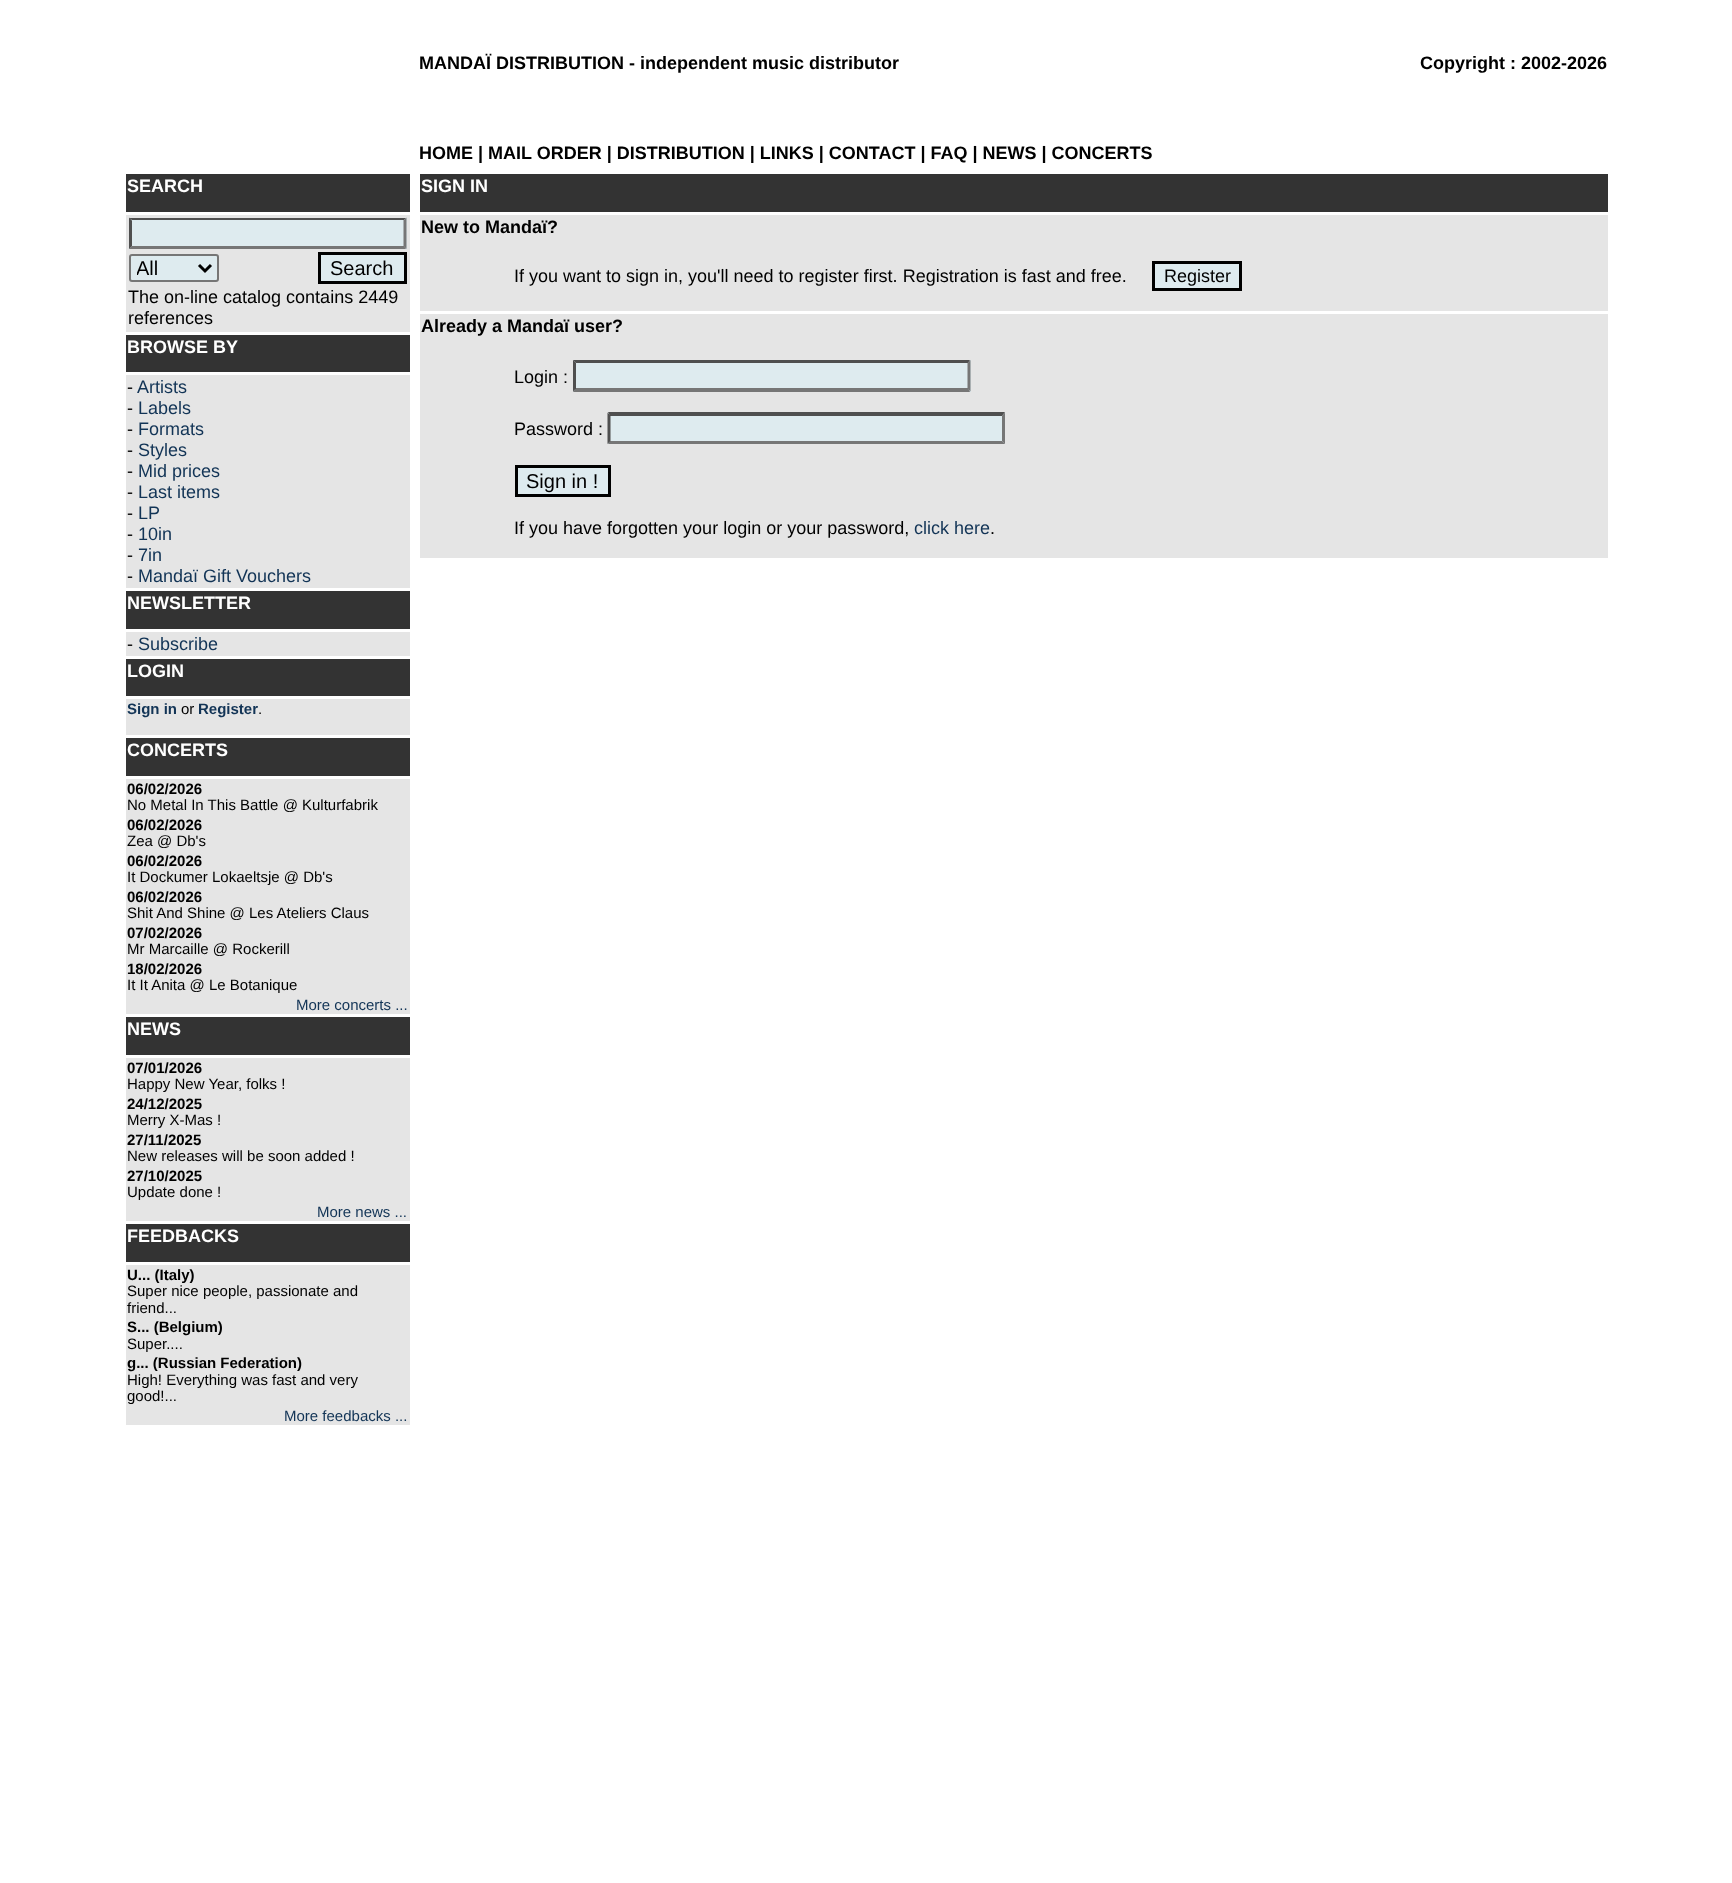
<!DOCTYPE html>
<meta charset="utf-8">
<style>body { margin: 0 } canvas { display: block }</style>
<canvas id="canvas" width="1732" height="1883"></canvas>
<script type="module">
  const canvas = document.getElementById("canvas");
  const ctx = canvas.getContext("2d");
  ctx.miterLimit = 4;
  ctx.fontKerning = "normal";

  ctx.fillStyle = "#ffffff";
  ctx.fillRect(0, 0, 1732, 1883);
  ctx.font = "bold 18px Liberation Sans";
  ctx.fillStyle = "#000000";
  ctx.fillText("MANDAÏ DISTRIBUTION - independent music distributor", 419, 69);
  ctx.fillText("Copyright : 2002-2026", 1420, 69);
  ctx.fillText("HOME | MAIL ORDER | DISTRIBUTION | LINKS | CONTACT | FAQ | NEWS | CONCERTS", 419, 159);
  ctx.fillStyle = "#333333";
  ctx.fillRect(126, 174, 284, 38);
  ctx.fillStyle = "#ffffff";
  ctx.fillText("SEARCH", 127, 192);
  ctx.fillStyle = "#e5e5e5";
  ctx.fillRect(126, 215, 284, 117);
  ctx.fillStyle = "#deebef";
  ctx.fillRect(129, 218, 278, 31);
  ctx.fillStyle = "#4f4f4f";
  ctx.beginPath();
  ctx.moveTo(129, 218);
  ctx.lineTo(406, 218);
  ctx.lineTo(404, 220);
  ctx.lineTo(132, 220);
  ctx.closePath();
  ctx.fill();
  ctx.fillStyle = "#767676";
  ctx.beginPath();
  ctx.moveTo(406.5, 217.5);
  ctx.lineTo(406.5, 249);
  ctx.lineTo(403.5, 246);
  ctx.lineTo(403.5, 220.5);
  ctx.closePath();
  ctx.fill();
  ctx.beginPath();
  ctx.moveTo(406, 249);
  ctx.lineTo(129, 249);
  ctx.lineTo(132, 246);
  ctx.lineTo(404, 246);
  ctx.closePath();
  ctx.fill();
  ctx.fillStyle = "#4f4f4f";
  ctx.beginPath();
  ctx.moveTo(129, 249);
  ctx.lineTo(129, 217.5);
  ctx.lineTo(132, 220.5);
  ctx.lineTo(132, 246);
  ctx.closePath();
  ctx.fill();
  ctx.fillStyle = "#deebef";
  ctx.beginPath();
  ctx.roundRect(130, 255, 88, 26, 2);
  ctx.fill();
  ctx.strokeStyle = "#767676";
  ctx.lineWidth = 2;
  ctx.stroke();
  ctx.beginPath();
  ctx.moveTo(199, 265);
  ctx.lineTo(205, 271);
  ctx.lineTo(211, 265);
  ctx.strokeStyle = "#000000";
  ctx.lineWidth = 3;
  ctx.stroke();
  ctx.save();
  ctx.beginPath();
  ctx.rect(137, 255, 57, 26);
  ctx.clip();
  ctx.font = "20px Liberation Sans";
  ctx.fillStyle = "#000000";
  ctx.fillText("All", 136, 275);
  ctx.restore();
  ctx.beginPath();
  ctx.rect(319.5, 253.5, 86, 29);
  ctx.fill();
  ctx.stroke();
  ctx.font = "20px Liberation Sans";
  ctx.fillStyle = "#000000";
  ctx.fillText("Search", 330, 275);
  ctx.font = "18px Liberation Sans";
  ctx.fillText("The on-line catalog contains 2449", 128, 303);
  ctx.fillText("references", 128, 324);
  ctx.fillStyle = "#333333";
  ctx.fillRect(126, 335, 284, 37);
  ctx.font = "bold 18px Liberation Sans";
  ctx.fillStyle = "#ffffff";
  ctx.fillText("BROWSE BY", 127, 353);
  ctx.fillStyle = "#e5e5e5";
  ctx.fillRect(126, 375, 284, 213);
  ctx.font = "18px Liberation Sans";
  ctx.fillStyle = "#000000";
  ctx.fillText("-", 127, 393);
  ctx.fillStyle = "#123456";
  ctx.fillText("Artists", 137, 393);
  ctx.fillStyle = "#000000";
  ctx.fillText("-", 127, 414);
  ctx.fillStyle = "#123456";
  ctx.fillText("Labels", 138, 414);
  ctx.fillStyle = "#000000";
  ctx.fillText("-", 127, 435);
  ctx.fillStyle = "#123456";
  ctx.fillText("Formats", 138, 435);
  ctx.fillStyle = "#000000";
  ctx.fillText("-", 127, 456);
  ctx.fillStyle = "#123456";
  ctx.fillText("Styles", 138, 456);
  ctx.fillStyle = "#000000";
  ctx.fillText("-", 127, 477);
  ctx.fillStyle = "#123456";
  ctx.fillText("Mid prices", 138, 477);
  ctx.fillStyle = "#000000";
  ctx.fillText("-", 127, 498);
  ctx.fillStyle = "#123456";
  ctx.fillText("Last items", 138, 498);
  ctx.fillStyle = "#000000";
  ctx.fillText("-", 127, 519);
  ctx.fillStyle = "#123456";
  ctx.fillText("LP", 138, 519);
  ctx.fillStyle = "#000000";
  ctx.fillText("-", 127, 540);
  ctx.fillStyle = "#123456";
  ctx.fillText("10in", 138, 540);
  ctx.fillStyle = "#000000";
  ctx.fillText("-", 127, 561);
  ctx.fillStyle = "#123456";
  ctx.fillText("7in", 138, 561);
  ctx.fillStyle = "#000000";
  ctx.fillText("-", 127, 582);
  ctx.fillStyle = "#123456";
  ctx.fillText("Mandaï Gift Vouchers", 138, 582);
  ctx.fillStyle = "#333333";
  ctx.fillRect(126, 591, 284, 38);
  ctx.font = "bold 18px Liberation Sans";
  ctx.fillStyle = "#ffffff";
  ctx.fillText("NEWSLETTER", 127, 609);
  ctx.fillStyle = "#e5e5e5";
  ctx.fillRect(126, 632, 284, 24);
  ctx.font = "18px Liberation Sans";
  ctx.fillStyle = "#000000";
  ctx.fillText("-", 127, 650);
  ctx.fillStyle = "#123456";
  ctx.fillText("Subscribe", 138, 650);
  ctx.fillStyle = "#333333";
  ctx.fillRect(126, 659, 284, 37);
  ctx.font = "bold 18px Liberation Sans";
  ctx.fillStyle = "#ffffff";
  ctx.fillText("LOGIN", 127, 677);
  ctx.fillStyle = "#e5e5e5";
  ctx.fillRect(126, 699, 284, 36);
  ctx.font = "bold 15px Liberation Sans";
  ctx.fillStyle = "#123456";
  ctx.fillText("Sign in", 127, 714);
  ctx.font = "15px Liberation Sans";
  ctx.fillStyle = "#000000";
  ctx.fillText("or", 181, 714);
  ctx.font = "bold 15px Liberation Sans";
  ctx.fillStyle = "#123456";
  ctx.fillText("Register", 198, 714);
  ctx.font = "15px Liberation Sans";
  ctx.fillStyle = "#000000";
  ctx.fillText(".", 258, 714);
  ctx.fillStyle = "#333333";
  ctx.fillRect(126, 738, 284, 38);
  ctx.font = "bold 18px Liberation Sans";
  ctx.fillStyle = "#ffffff";
  ctx.fillText("CONCERTS", 127, 756);
  ctx.fillStyle = "#e5e5e5";
  ctx.fillRect(126, 779, 284, 235);
  ctx.font = "bold 15px Liberation Sans";
  ctx.fillStyle = "#000000";
  ctx.fillText("06/02/2026", 127, 794);
  ctx.font = "15px Liberation Sans";
  ctx.fillText("No Metal In This Battle @ Kulturfabrik", 127, 810);
  ctx.font = "bold 15px Liberation Sans";
  ctx.fillText("06/02/2026", 127, 830);
  ctx.font = "15px Liberation Sans";
  ctx.fillText("Zea @ Db's", 127, 846);
  ctx.font = "bold 15px Liberation Sans";
  ctx.fillText("06/02/2026", 127, 866);
  ctx.font = "15px Liberation Sans";
  ctx.fillText("It Dockumer Lokaeltsje @ Db's", 127, 882);
  ctx.font = "bold 15px Liberation Sans";
  ctx.fillText("06/02/2026", 127, 902);
  ctx.font = "15px Liberation Sans";
  ctx.fillText("Shit And Shine @ Les Ateliers Claus", 127, 918);
  ctx.font = "bold 15px Liberation Sans";
  ctx.fillText("07/02/2026", 127, 938);
  ctx.font = "15px Liberation Sans";
  ctx.fillText("Mr Marcaille @ Rockerill", 127, 954);
  ctx.font = "bold 15px Liberation Sans";
  ctx.fillText("18/02/2026", 127, 974);
  ctx.font = "15px Liberation Sans";
  ctx.fillText("It It Anita @ Le Botanique", 127, 990);
  ctx.fillStyle = "#123456";
  ctx.fillText("More concerts ...", 296, 1010);
  ctx.fillStyle = "#333333";
  ctx.fillRect(126, 1017, 284, 38);
  ctx.font = "bold 18px Liberation Sans";
  ctx.fillStyle = "#ffffff";
  ctx.fillText("NEWS", 127, 1035);
  ctx.fillStyle = "#e5e5e5";
  ctx.fillRect(126, 1058, 284, 163);
  ctx.font = "bold 15px Liberation Sans";
  ctx.fillStyle = "#000000";
  ctx.fillText("07/01/2026", 127, 1073);
  ctx.font = "15px Liberation Sans";
  ctx.fillText("Happy New Year, folks !", 127, 1089);
  ctx.font = "bold 15px Liberation Sans";
  ctx.fillText("24/12/2025", 127, 1109);
  ctx.font = "15px Liberation Sans";
  ctx.fillText("Merry X-Mas !", 127, 1125);
  ctx.font = "bold 15px Liberation Sans";
  ctx.fillText("27/11/2025", 127, 1145);
  ctx.font = "15px Liberation Sans";
  ctx.fillText("New releases will be soon added !", 127, 1161);
  ctx.font = "bold 15px Liberation Sans";
  ctx.fillText("27/10/2025", 127, 1181);
  ctx.font = "15px Liberation Sans";
  ctx.fillText("Update done !", 127, 1197);
  ctx.fillStyle = "#123456";
  ctx.fillText("More news ...", 317, 1217);
  ctx.fillStyle = "#333333";
  ctx.fillRect(126, 1224, 284, 38);
  ctx.font = "bold 18px Liberation Sans";
  ctx.fillStyle = "#ffffff";
  ctx.fillText("FEEDBACKS", 127, 1242);
  ctx.fillStyle = "#e5e5e5";
  ctx.fillRect(126, 1265, 284, 160);
  ctx.font = "bold 15px Liberation Sans";
  ctx.fillStyle = "#000000";
  ctx.fillText("U... (Italy)", 127, 1280);
  ctx.font = "15px Liberation Sans";
  ctx.fillText("Super nice people, passionate and", 127, 1296);
  ctx.fillText("friend...", 127, 1313);
  ctx.font = "bold 15px Liberation Sans";
  ctx.fillText("S... (Belgium)", 127, 1332);
  ctx.font = "15px Liberation Sans";
  ctx.fillText("Super....", 127, 1349);
  ctx.font = "bold 15px Liberation Sans";
  ctx.fillText("g... (Russian Federation)", 127, 1368);
  ctx.font = "15px Liberation Sans";
  ctx.fillText("High! Everything was fast and very", 127, 1385);
  ctx.fillText("good!...", 127, 1401);
  ctx.fillStyle = "#123456";
  ctx.fillText("More feedbacks ...", 284, 1421);
  ctx.fillStyle = "#e5e5e5";
  ctx.fillRect(420, 215, 1188, 343);
  ctx.fillStyle = "#333333";
  ctx.fillRect(420, 174, 1188, 38);
  ctx.font = "bold 18px Liberation Sans";
  ctx.fillStyle = "#ffffff";
  ctx.fillText("SIGN IN", 421, 192);
  ctx.fillStyle = "#000000";
  ctx.fillText("New to Mandaï?", 421, 233);
  ctx.font = "18px Liberation Sans";
  ctx.fillText("If you want to sign in, you'll need to register first. Registration is fast and free.", 514, 282);
  ctx.fillStyle = "#deebef";
  ctx.beginPath();
  ctx.rect(1153.5, 262.5, 87, 27);
  ctx.fill();
  ctx.stroke();
  ctx.fillStyle = "#000000";
  ctx.fillText("Register", 1164, 282);
  ctx.fillStyle = "#ffffff";
  ctx.fillRect(420, 311, 1188, 3);
  ctx.font = "bold 18px Liberation Sans";
  ctx.fillStyle = "#000000";
  ctx.fillText("Already a Mandaï user?", 421, 332);
  ctx.font = "18px Liberation Sans";
  ctx.fillText("Login :", 514, 383);
  ctx.fillStyle = "#deebef";
  ctx.fillRect(573, 360, 398, 32);
  ctx.fillStyle = "#4f4f4f";
  ctx.beginPath();
  ctx.moveTo(573, 360);
  ctx.lineTo(970, 360);
  ctx.lineTo(968, 363);
  ctx.lineTo(576, 363);
  ctx.closePath();
  ctx.fill();
  ctx.fillStyle = "#767676";
  ctx.beginPath();
  ctx.moveTo(970.5, 360);
  ctx.lineTo(970.5, 391.5);
  ctx.lineTo(967.5, 388.5);
  ctx.lineTo(967.5, 363);
  ctx.closePath();
  ctx.fill();
  ctx.beginPath();
  ctx.moveTo(970, 392);
  ctx.lineTo(573, 392);
  ctx.lineTo(576, 388);
  ctx.lineTo(968, 388);
  ctx.closePath();
  ctx.fill();
  ctx.fillStyle = "#4f4f4f";
  ctx.beginPath();
  ctx.moveTo(573, 391.5);
  ctx.lineTo(573, 360);
  ctx.lineTo(576, 363);
  ctx.lineTo(576, 388.5);
  ctx.closePath();
  ctx.fill();
  ctx.fillStyle = "#000000";
  ctx.fillText("Password :", 514, 435);
  ctx.fillStyle = "#deebef";
  ctx.fillRect(608, 413, 397, 31);
  ctx.fillStyle = "#4f4f4f";
  ctx.beginPath();
  ctx.moveTo(608, 412);
  ctx.lineTo(1005, 412);
  ctx.lineTo(1002, 416);
  ctx.lineTo(610, 416);
  ctx.closePath();
  ctx.fill();
  ctx.fillStyle = "#767676";
  ctx.beginPath();
  ctx.moveTo(1005, 412.5);
  ctx.lineTo(1005, 444);
  ctx.lineTo(1002, 441);
  ctx.lineTo(1002, 415.5);
  ctx.closePath();
  ctx.fill();
  ctx.beginPath();
  ctx.moveTo(1005, 444);
  ctx.lineTo(608, 444);
  ctx.lineTo(610, 441);
  ctx.lineTo(1002, 441);
  ctx.closePath();
  ctx.fill();
  ctx.fillStyle = "#4f4f4f";
  ctx.beginPath();
  ctx.moveTo(607.5, 444);
  ctx.lineTo(607.5, 412.5);
  ctx.lineTo(610.5, 415.5);
  ctx.lineTo(610.5, 441);
  ctx.closePath();
  ctx.fill();
  ctx.fillStyle = "#deebef";
  ctx.beginPath();
  ctx.rect(516.5, 466.5, 93, 29);
  ctx.fill();
  ctx.stroke();
  ctx.font = "20px Liberation Sans";
  ctx.fillStyle = "#000000";
  ctx.fillText("Sign in !", 526, 488);
  ctx.font = "18px Liberation Sans";
  ctx.fillText("If you have forgotten your login or your password,", 514, 534);
  ctx.fillStyle = "#123456";
  ctx.fillText("click here", 914, 534);
  ctx.fillStyle = "#000000";
  ctx.fillText(".", 990, 534);
</script>
